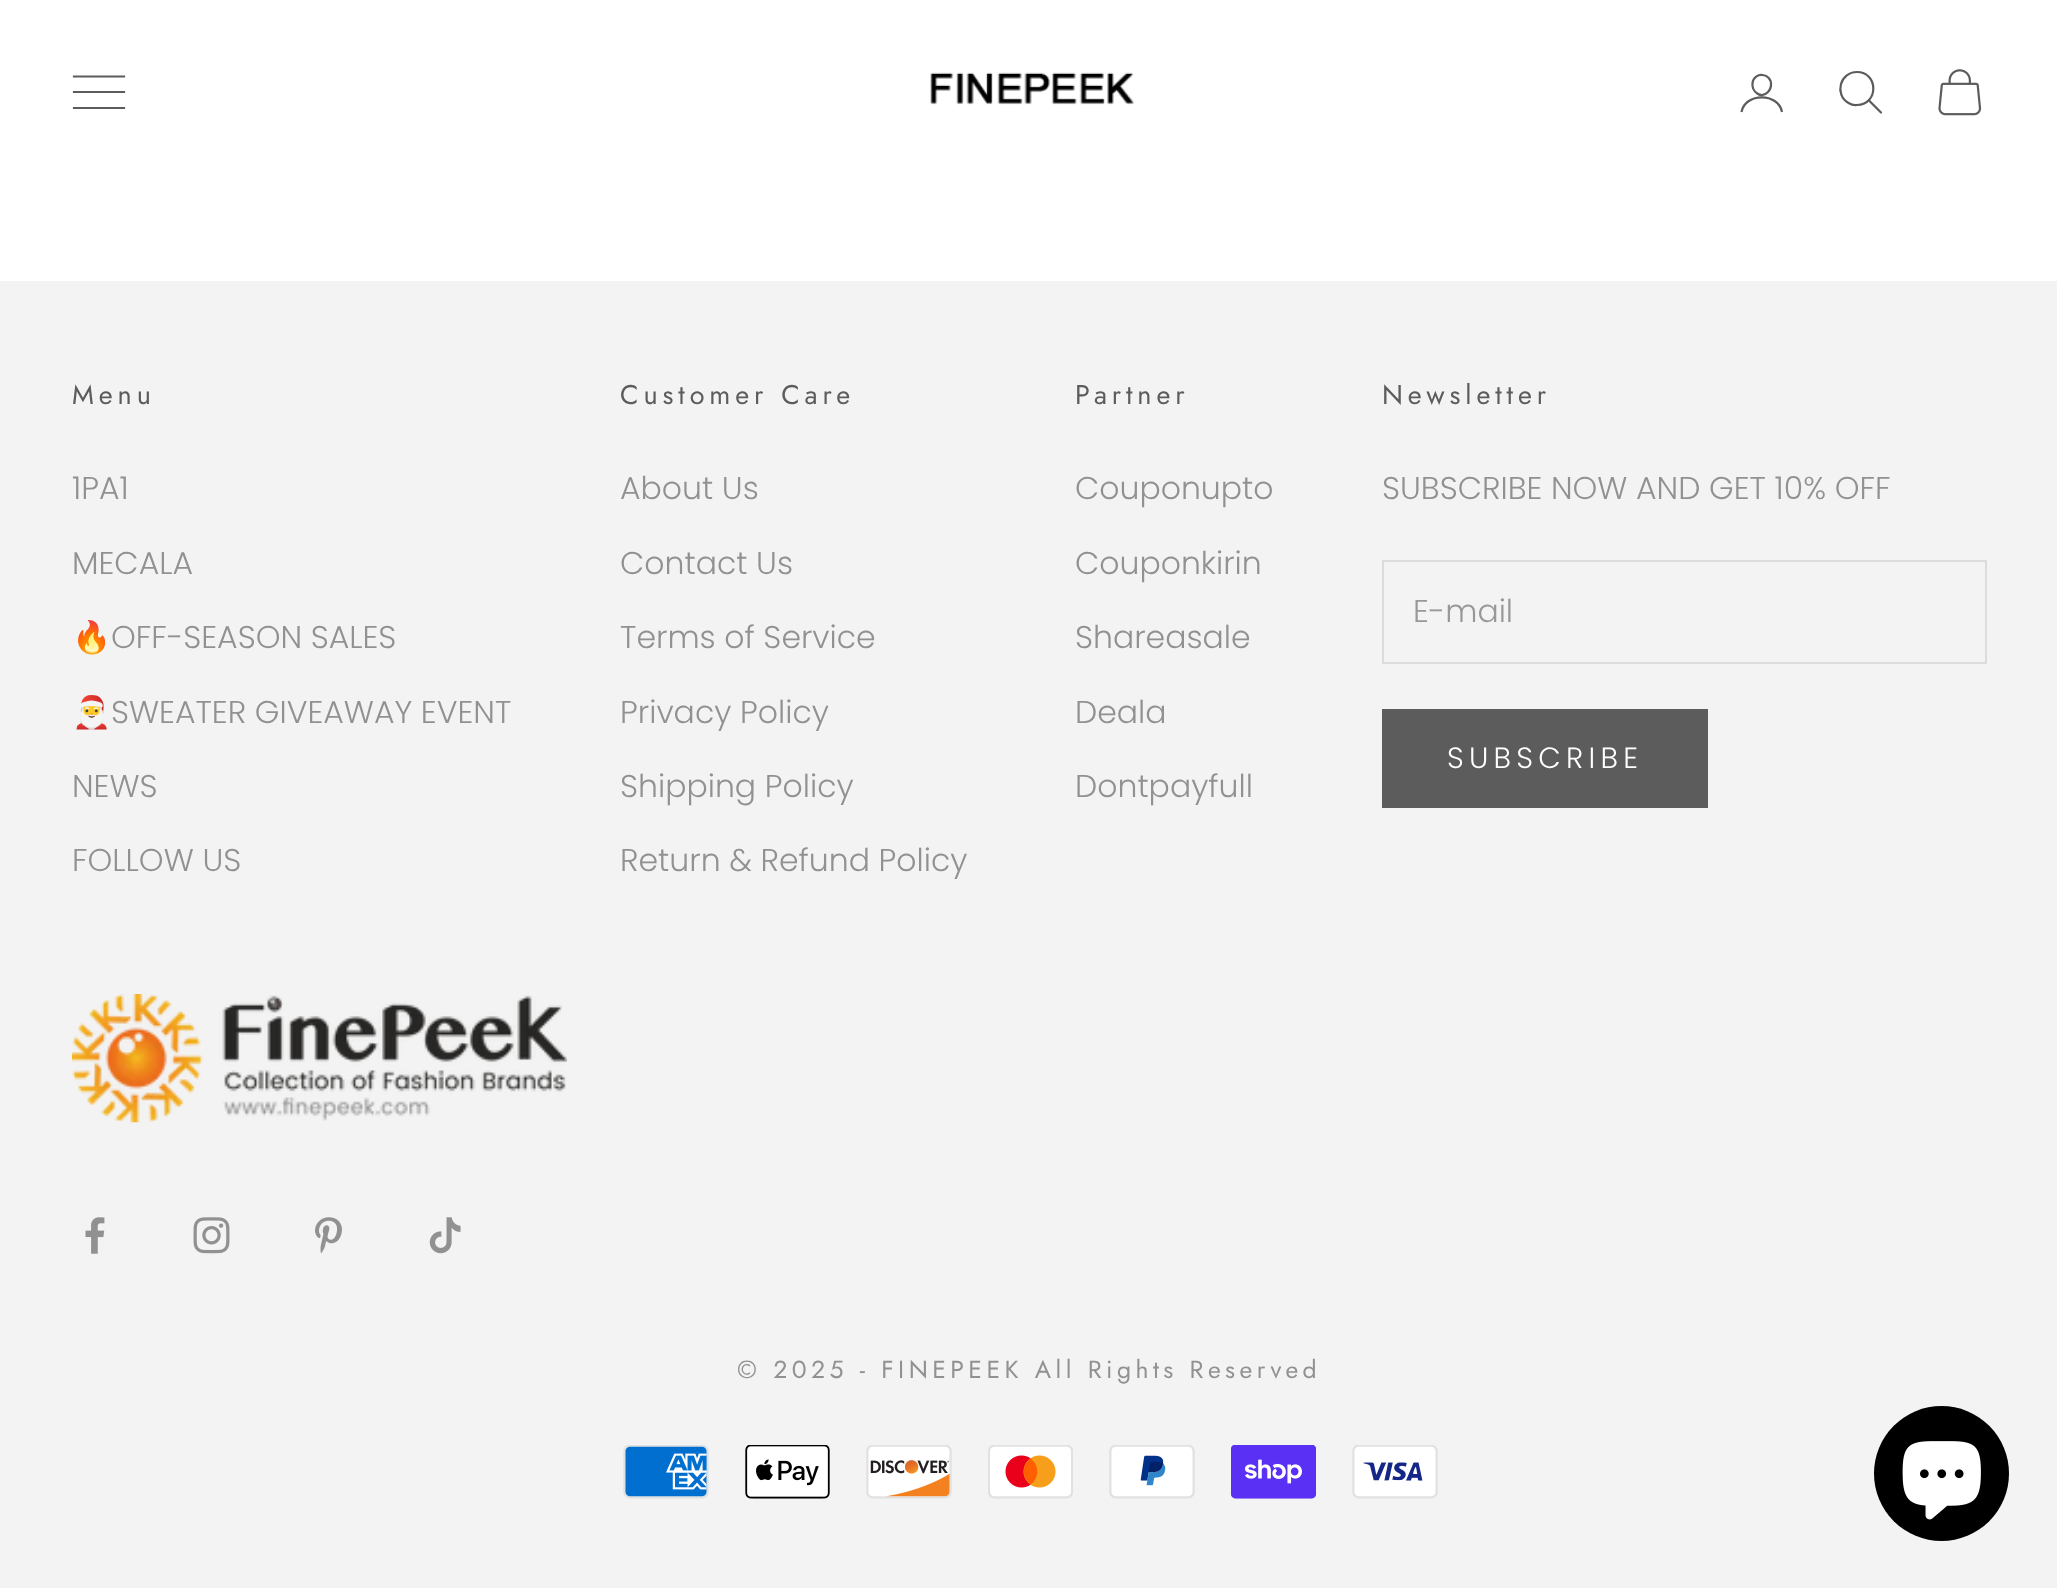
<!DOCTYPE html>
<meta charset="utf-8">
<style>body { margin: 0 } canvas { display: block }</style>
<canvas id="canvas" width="2057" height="1588"></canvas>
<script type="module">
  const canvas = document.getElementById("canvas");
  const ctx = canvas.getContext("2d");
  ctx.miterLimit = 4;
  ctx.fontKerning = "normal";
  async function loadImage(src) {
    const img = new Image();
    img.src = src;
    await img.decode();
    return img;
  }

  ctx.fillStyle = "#ffffff";
  ctx.fillRect(0, 0, 2057, 1588);
  ctx.beginPath();
  ctx.moveTo(74, 108);
  ctx.lineTo(124, 108);
  ctx.moveTo(74, 92);
  ctx.lineTo(124, 92);
  ctx.moveTo(74, 76.5);
  ctx.lineTo(124, 76.5);
  ctx.strokeStyle = "#5c5c5c";
  ctx.lineWidth = 2.2;
  ctx.lineCap = "square";
  ctx.stroke();
  ctx.drawImage(await loadImage("img1.png"), 930, 72, 204, 33);
  ctx.beginPath();
  ctx.moveTo(1771, 85);
  ctx.bezierCurveTo(1771, 87.5, 1770, 90, 1768, 92);
  ctx.bezierCurveTo(1761, 99.5, 1751.5, 91.5, 1752.5, 83);
  ctx.bezierCurveTo(1754, 71, 1772, 73, 1771, 85);
  ctx.closePath();
  ctx.lineCap = "round";
  ctx.lineJoin = "round";
  ctx.stroke();
  ctx.beginPath();
  ctx.moveTo(1741.5, 112);
  ctx.bezierCurveTo(1745, 92.5, 1778.5, 92.5, 1782, 112);
  ctx.lineCap = "butt";
  ctx.lineJoin = "miter";
  ctx.stroke();
  ctx.beginPath();
  ctx.moveTo(1857, 72);
  ctx.bezierCurveTo(1840, 72, 1834, 94.5, 1848.5, 103);
  ctx.bezierCurveTo(1851, 104.5, 1854, 105.5, 1857, 105);
  ctx.bezierCurveTo(1879.5, 104, 1878, 72, 1857, 72);
  ctx.closePath();
  ctx.stroke();
  ctx.beginPath();
  ctx.moveTo(1869.5, 101);
  ctx.lineTo(1881, 112.5);
  ctx.lineCap = "round";
  ctx.stroke();
  ctx.drawImage(await loadImage("img2.png"), 1938, 69, 44, 47);
  ctx.fillStyle = "#f3f3f3";
  ctx.fillRect(0, 281, 2057, 1307);
  ctx.letterSpacing = "4.9px";
  ctx.font = "27px Jost";
  ctx.fillStyle = "#5c5c5c";
  ctx.fillText("Menu", 72, 404);
  ctx.letterSpacing = "0px";
  ctx.font = "300 31.5px Poppins";
  ctx.fillStyle = "#919191";
  ctx.fillText("1PA1", 72, 499);
  ctx.fillText("MECALA", 72, 574);
  ctx.font = "31.5px Noto Color Emoji";
  ctx.fillText("🔥", 72, 648);
  ctx.font = "300 31.5px Poppins";
  ctx.fillText("OFF-SEASON SALES", 111, 648);
  ctx.font = "31.5px Noto Color Emoji";
  ctx.fillText("🎅", 72, 723);
  ctx.font = "300 31.5px Poppins";
  ctx.fillText("SWEATER GIVEAWAY EVENT", 111, 723);
  ctx.fillText("NEWS", 72, 797);
  ctx.fillText("FOLLOW US", 72, 871);
  ctx.letterSpacing = "4.9px";
  ctx.font = "27px Jost";
  ctx.fillStyle = "#5c5c5c";
  ctx.fillText("Customer Care", 620, 404);
  ctx.letterSpacing = "0px";
  ctx.font = "300 31.5px Poppins";
  ctx.fillStyle = "#919191";
  ctx.fillText("About Us", 620, 499);
  ctx.fillText("Contact Us", 620, 574);
  ctx.fillText("Terms of Service", 620, 648);
  ctx.fillText("Privacy Policy", 620, 723);
  ctx.fillText("Shipping Policy", 620, 797);
  ctx.fillText("Return & Refund Policy", 620, 871);
  ctx.letterSpacing = "4.9px";
  ctx.font = "27px Jost";
  ctx.fillStyle = "#5c5c5c";
  ctx.fillText("Partner", 1075, 404);
  ctx.letterSpacing = "0px";
  ctx.font = "300 31.5px Poppins";
  ctx.fillStyle = "#919191";
  ctx.fillText("Couponupto", 1075, 499);
  ctx.fillText("Couponkirin", 1075, 574);
  ctx.fillText("Shareasale", 1075, 648);
  ctx.fillText("Deala", 1075, 723);
  ctx.fillText("Dontpayfull", 1075, 797);
  ctx.letterSpacing = "4.9px";
  ctx.font = "27px Jost";
  ctx.fillStyle = "#5c5c5c";
  ctx.fillText("Newsletter", 1382, 404);
  ctx.letterSpacing = "0px";
  ctx.font = "300 31.5px Poppins";
  ctx.fillStyle = "#919191";
  ctx.fillText("SUBSCRIBE NOW AND GET 10% OFF", 1382, 499);
  ctx.strokeStyle = "#dcdcdc";
  ctx.lineWidth = 2;
  ctx.strokeRect(1383, 561, 603, 102);
  ctx.fillStyle = "#989898";
  ctx.fillText("E-mail", 1413, 622);
  ctx.fillStyle = "#5c5c5c";
  ctx.beginPath();
  ctx.rect(1383, 710, 324, 97);
  ctx.fill();
  ctx.strokeStyle = "#5c5c5c";
  ctx.stroke();
  ctx.letterSpacing = "5.25px";
  ctx.font = "300 29.25px Poppins";
  ctx.fillStyle = "#ffffff";
  ctx.fillText("SUBSCRIBE", 1447, 768);
  ctx.drawImage(await loadImage("img3.png"), 72, 994, 495, 129);
  ctx.drawImage(await loadImage("img4.png"), 85, 1217, 20, 37);
  ctx.drawImage(await loadImage("img5.png"), 193, 1217, 37, 37);
  ctx.drawImage(await loadImage("img6.png"), 315, 1217, 27, 36);
  ctx.drawImage(await loadImage("img7.png"), 429, 1217, 32, 37);
  ctx.letterSpacing = "4.45px";
  ctx.font = "24.75px Jost";
  ctx.fillStyle = "#919191";
  ctx.fillText("© 2025 - FINEPEEK All Rights Reserved", 737, 1378);
  ctx.drawImage(await loadImage("img8.png"), 623, 1445, 86, 54);
  ctx.drawImage(await loadImage("img9.png"), 745, 1445, 85, 54);
  ctx.drawImage(await loadImage("img10.png"), 866, 1445, 86, 54);
  ctx.drawImage(await loadImage("img11.png"), 988, 1445, 85, 54);
  ctx.drawImage(await loadImage("img12.png"), 1109, 1445, 86, 54);
  ctx.drawImage(await loadImage("img13.png"), 1231, 1445, 85, 54);
  ctx.drawImage(await loadImage("img14.png"), 1352, 1445, 86, 54);
  ctx.fillStyle = "#000000";
  ctx.beginPath();
  ctx.arc(1941.5, 1473.5, 67.5, 0, Math.PI * 2);
  ctx.fill();
  ctx.drawImage(await loadImage("img15.png"), 1902, 1441, 79, 79);
</script>
